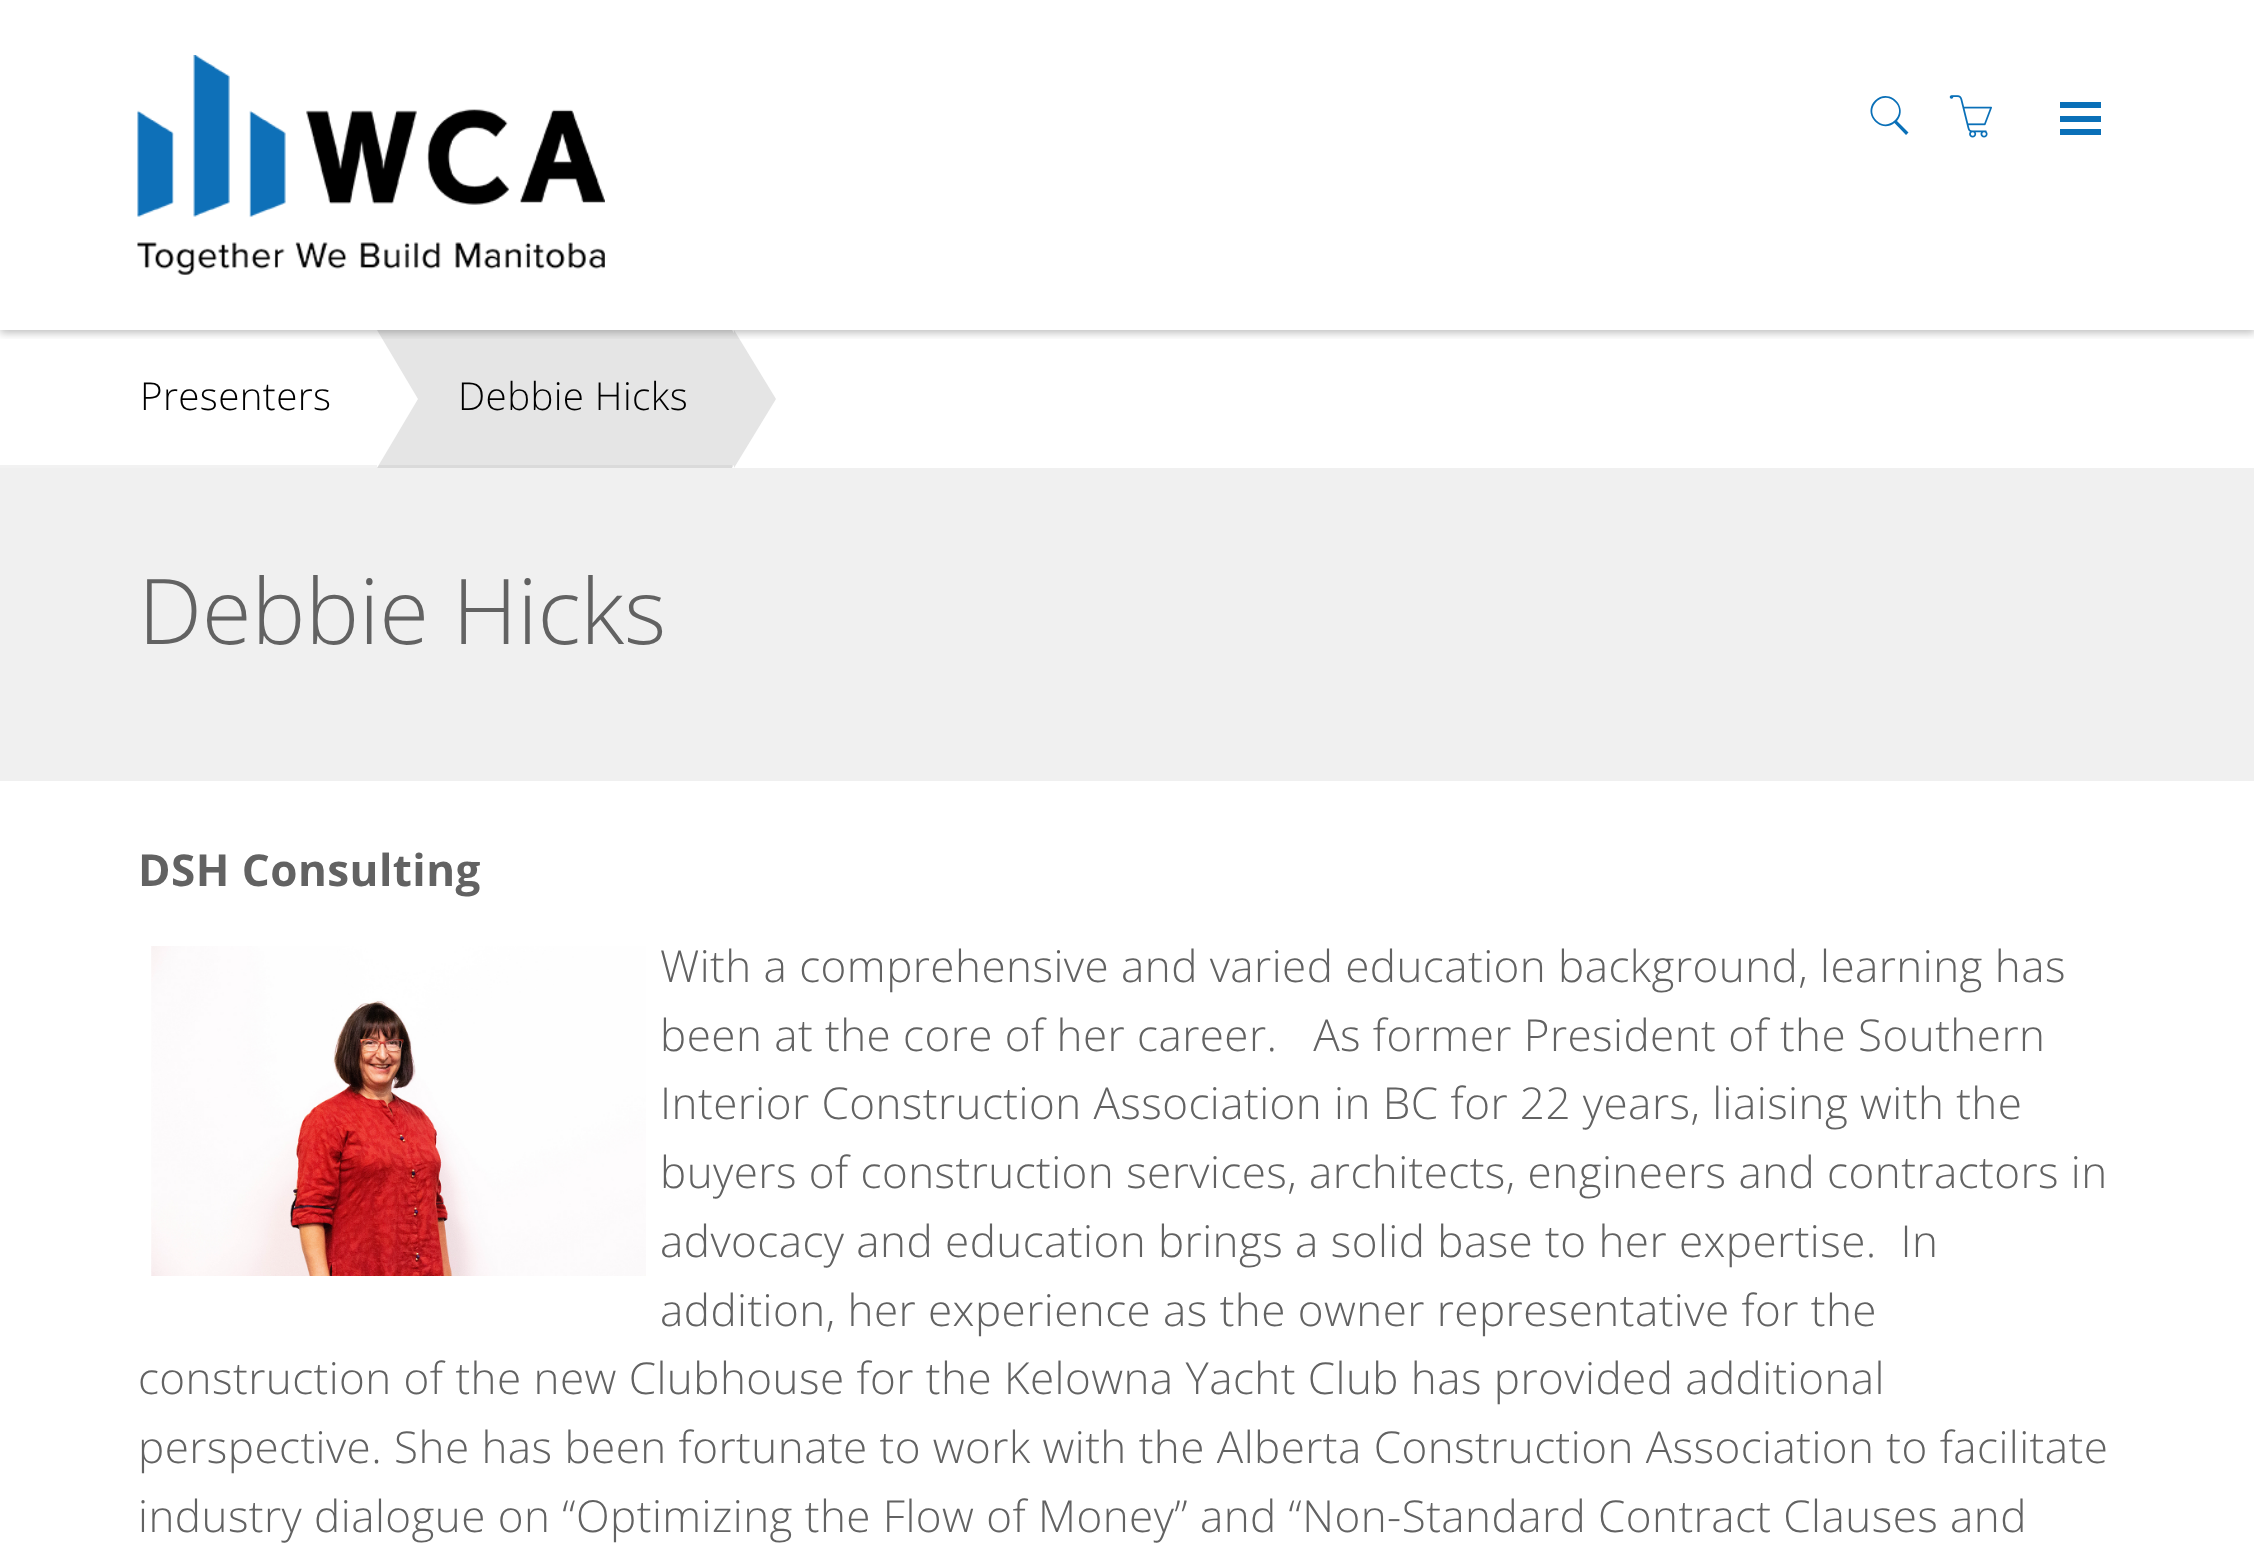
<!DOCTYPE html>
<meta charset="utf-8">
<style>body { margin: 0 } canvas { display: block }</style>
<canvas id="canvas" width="2254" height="1562"></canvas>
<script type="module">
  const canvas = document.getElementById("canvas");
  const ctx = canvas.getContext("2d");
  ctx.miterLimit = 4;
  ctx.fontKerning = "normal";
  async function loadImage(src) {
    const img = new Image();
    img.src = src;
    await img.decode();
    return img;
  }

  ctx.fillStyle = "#ffffff";
  ctx.fillRect(0, 0, 2254, 1562);
  ctx.fillStyle = "#e5e5e5";
  ctx.fillRect(377, 330, 355, 135);
  ctx.fillStyle = "#dadada";
  ctx.fillRect(377, 465, 355, 3);
  ctx.fillStyle = "#ffffff";
  ctx.beginPath();
  ctx.moveTo(377, 468);
  ctx.lineTo(377, 330);
  ctx.lineTo(418, 399);
  ctx.closePath();
  ctx.fill();
  ctx.fillStyle = "#e5e5e5";
  ctx.beginPath();
  ctx.moveTo(734, 468);
  ctx.lineTo(734, 330);
  ctx.lineTo(776, 399);
  ctx.closePath();
  ctx.fill();
  ctx.beginPath();
  ctx.moveTo(732, 468);
  ctx.lineTo(732, 330);
  ctx.lineTo(773, 399);
  ctx.closePath();
  ctx.fill();
  ctx.save();
  ctx.beginPath();
  ctx.rect(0, 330, 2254, 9);
  ctx.clip();
  ctx.fillStyle = "rgba(0, 0, 0, 0.25)";
  ctx.filter = "blur(4px)";
  ctx.beginPath();
  ctx.rect(0, 3, 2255, 330);
  ctx.fill();
  ctx.filter = "none";
  ctx.restore();
  ctx.drawImage(await loadImage("img1.png"), 137, 55, 468, 220);
  ctx.fillStyle = "#0a70b8";
  ctx.beginPath();
  ctx.moveTo(1875, 100.5);
  ctx.bezierCurveTo(1888.5, 87, 1909.5, 106.5, 1897, 121);
  ctx.lineTo(1908.5, 132.5);
  ctx.lineTo(1906, 135);
  ctx.lineTo(1894.5, 123);
  ctx.bezierCurveTo(1880, 134, 1862, 113.5, 1875, 100.5);
  ctx.closePath();
  ctx.moveTo(1895, 102);
  ctx.bezierCurveTo(1882.5, 89.5, 1864, 108, 1876.5, 120.5);
  ctx.bezierCurveTo(1888.5, 132.5, 1907.5, 114, 1895, 102);
  ctx.closePath();
  ctx.fill();
  ctx.drawImage(await loadImage("img2.png"), 1949, 95, 43, 43);
  ctx.fillRect(2060, 102, 41, 6);
  ctx.fillRect(2060, 116, 41, 6);
  ctx.fillRect(2060, 129, 41, 6);
  ctx.fillStyle = "#f0f0f0";
  ctx.fillRect(0, 468, 2254, 313);
  ctx.letterSpacing = "0.4px";
  ctx.font = "300 38.5px Open Sans";
  ctx.fillStyle = "#000000";
  ctx.fillText("Presenters", 140, 410);
  ctx.fillText("Debbie Hicks", 458, 410);
  ctx.fillStyle = "#f2f2f2";
  ctx.fillRect(0, 465, 377, 3);
  ctx.letterSpacing = "-0.25px";
  ctx.font = "300 90.75px Open Sans";
  ctx.fillStyle = "#626262";
  ctx.fillText("Debbie Hicks", 138, 644);
  ctx.letterSpacing = "0.45px";
  ctx.font = "bold 44px Open Sans";
  ctx.fillText("DSH Consulting", 138, 886);
  ctx.drawImage(await loadImage("img3.png"), 151, 946, 495, 330);
  ctx.font = "300 44px Open Sans";
  ctx.fillText("With a comprehensive and varied education background, learning has", 660, 982);
  ctx.fillText("been at the core of her career.   As former President of the Southern", 660, 1051);
  ctx.fillText("Interior Construction Association in BC for 22 years, liaising with the", 660, 1119);
  ctx.fillText("buyers of construction services, architects, engineers and contractors in", 660, 1188);
  ctx.fillText("advocacy and education brings a solid base to her expertise.  In", 660, 1257);
  ctx.fillText("addition, her experience as the owner representative for the", 660, 1326);
  ctx.fillText("construction of the new Clubhouse for the Kelowna Yacht Club has provided additional", 138, 1394);
  ctx.fillText("perspective. She has been fortunate to work with the Alberta Construction Association to facilitate", 138, 1463);
  ctx.fillText("industry dialogue on “Optimizing the Flow of Money” and “Non-Standard Contract Clauses and", 138, 1532);
</script>
